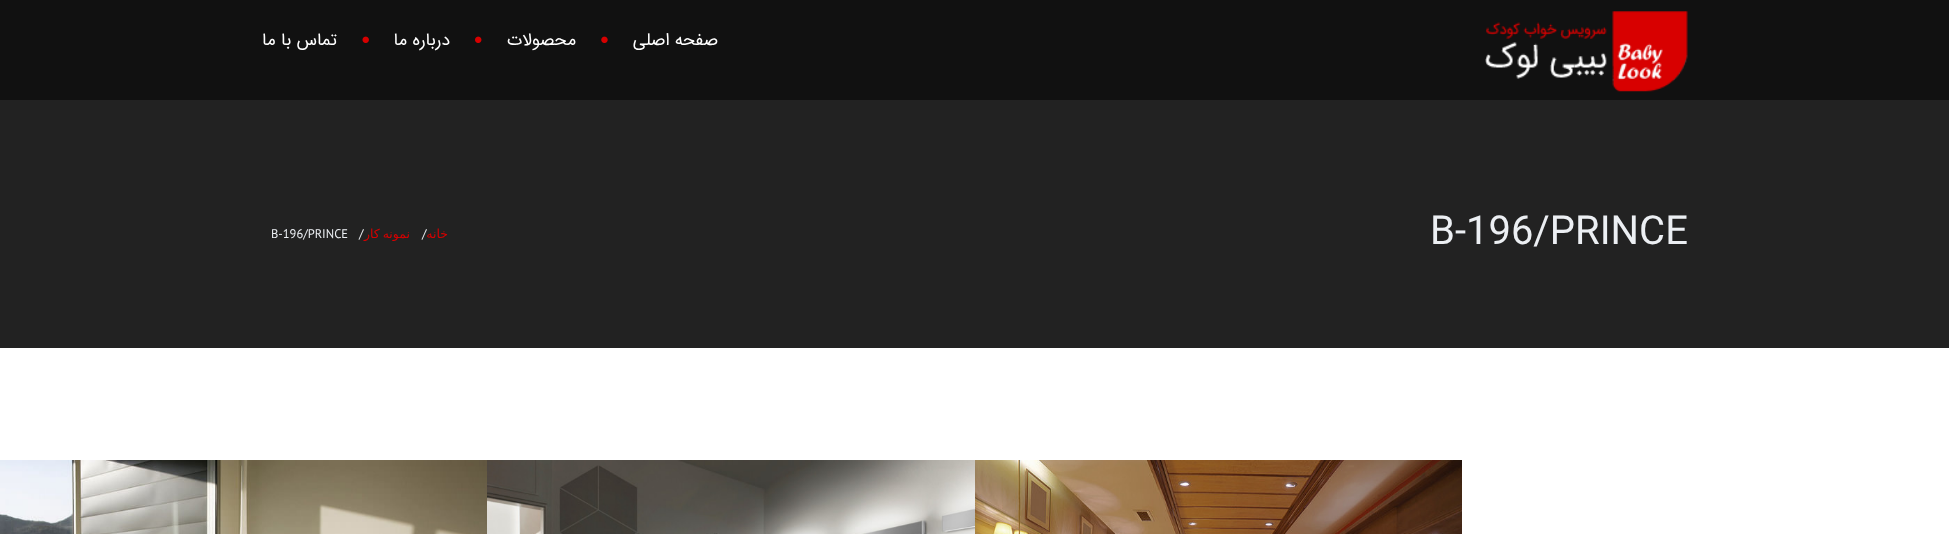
<!DOCTYPE html>
<meta charset="utf-8">
<style>body { margin: 0 } canvas { display: block }</style>
<canvas id="canvas" width="1949" height="534"></canvas>
<script type="module">
  const canvas = document.getElementById("canvas");
  const ctx = canvas.getContext("2d");
  ctx.miterLimit = 4;
  ctx.fontKerning = "normal";
  async function loadImage(src) {
    const img = new Image();
    img.src = src;
    await img.decode();
    return img;
  }

  ctx.fillStyle = "#ffffff";
  ctx.fillRect(0, 0, 1949, 534);
  ctx.fillStyle = "#111111";
  ctx.fillRect(0, 0, 1949, 100);
  ctx.drawImage(await loadImage("img1.png"), 1485, 11, 203, 81);
  ctx.direction = "rtl";
  ctx.font = "17.5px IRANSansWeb";
  ctx.fillStyle = "#ffffff";
  ctx.fillText("صفحه اصلی", 718, 45);
  ctx.drawImage(await loadImage("img2.png"), 601, 36, 7, 7);
  ctx.fillText("محصولات", 576, 45);
  ctx.drawImage(await loadImage("img3.png"), 475, 36, 7, 7);
  ctx.fillText("درباره ما", 450, 45);
  ctx.drawImage(await loadImage("img4.png"), 362, 36, 7, 7);
  ctx.fillText("تماس با ما", 337, 45);
  ctx.fillStyle = "#222222";
  ctx.fillRect(0, 100, 1949, 248);
  ctx.direction = "ltr";
  ctx.font = "40px IRANSansWeb";
  ctx.fillStyle = "#eceff3";
  ctx.fillText("B-196/PRINCE", 1430, 244);
  ctx.direction = "rtl";
  ctx.font = "12.5px DejaVu Sans";
  ctx.fillStyle = "#d70000";
  ctx.fillText("خانه", 448, 238);
  ctx.direction = "ltr";
  ctx.font = "12.5px PT Sans";
  ctx.fillStyle = "#eceff3";
  ctx.fillText("/", 422, 238);
  ctx.wordSpacing = "-1px";
  ctx.direction = "rtl";
  ctx.font = "12.5px DejaVu Sans";
  ctx.fillStyle = "#d70000";
  ctx.fillText("نمونه کار", 410, 238);
  ctx.wordSpacing = "0px";
  ctx.direction = "ltr";
  ctx.font = "12.5px PT Sans";
  ctx.fillStyle = "#eceff3";
  ctx.fillText("/", 359, 238);
  ctx.fillText("B-196/PRINCE", 271, 238);
  ctx.drawImage(await loadImage("img5.png"), 975, 460, 487, 74);
  ctx.drawImage(await loadImage("img6.png"), 487, 460, 488, 74);
  ctx.drawImage(await loadImage("img7.png"), 0, 460, 487, 74);
</script>
